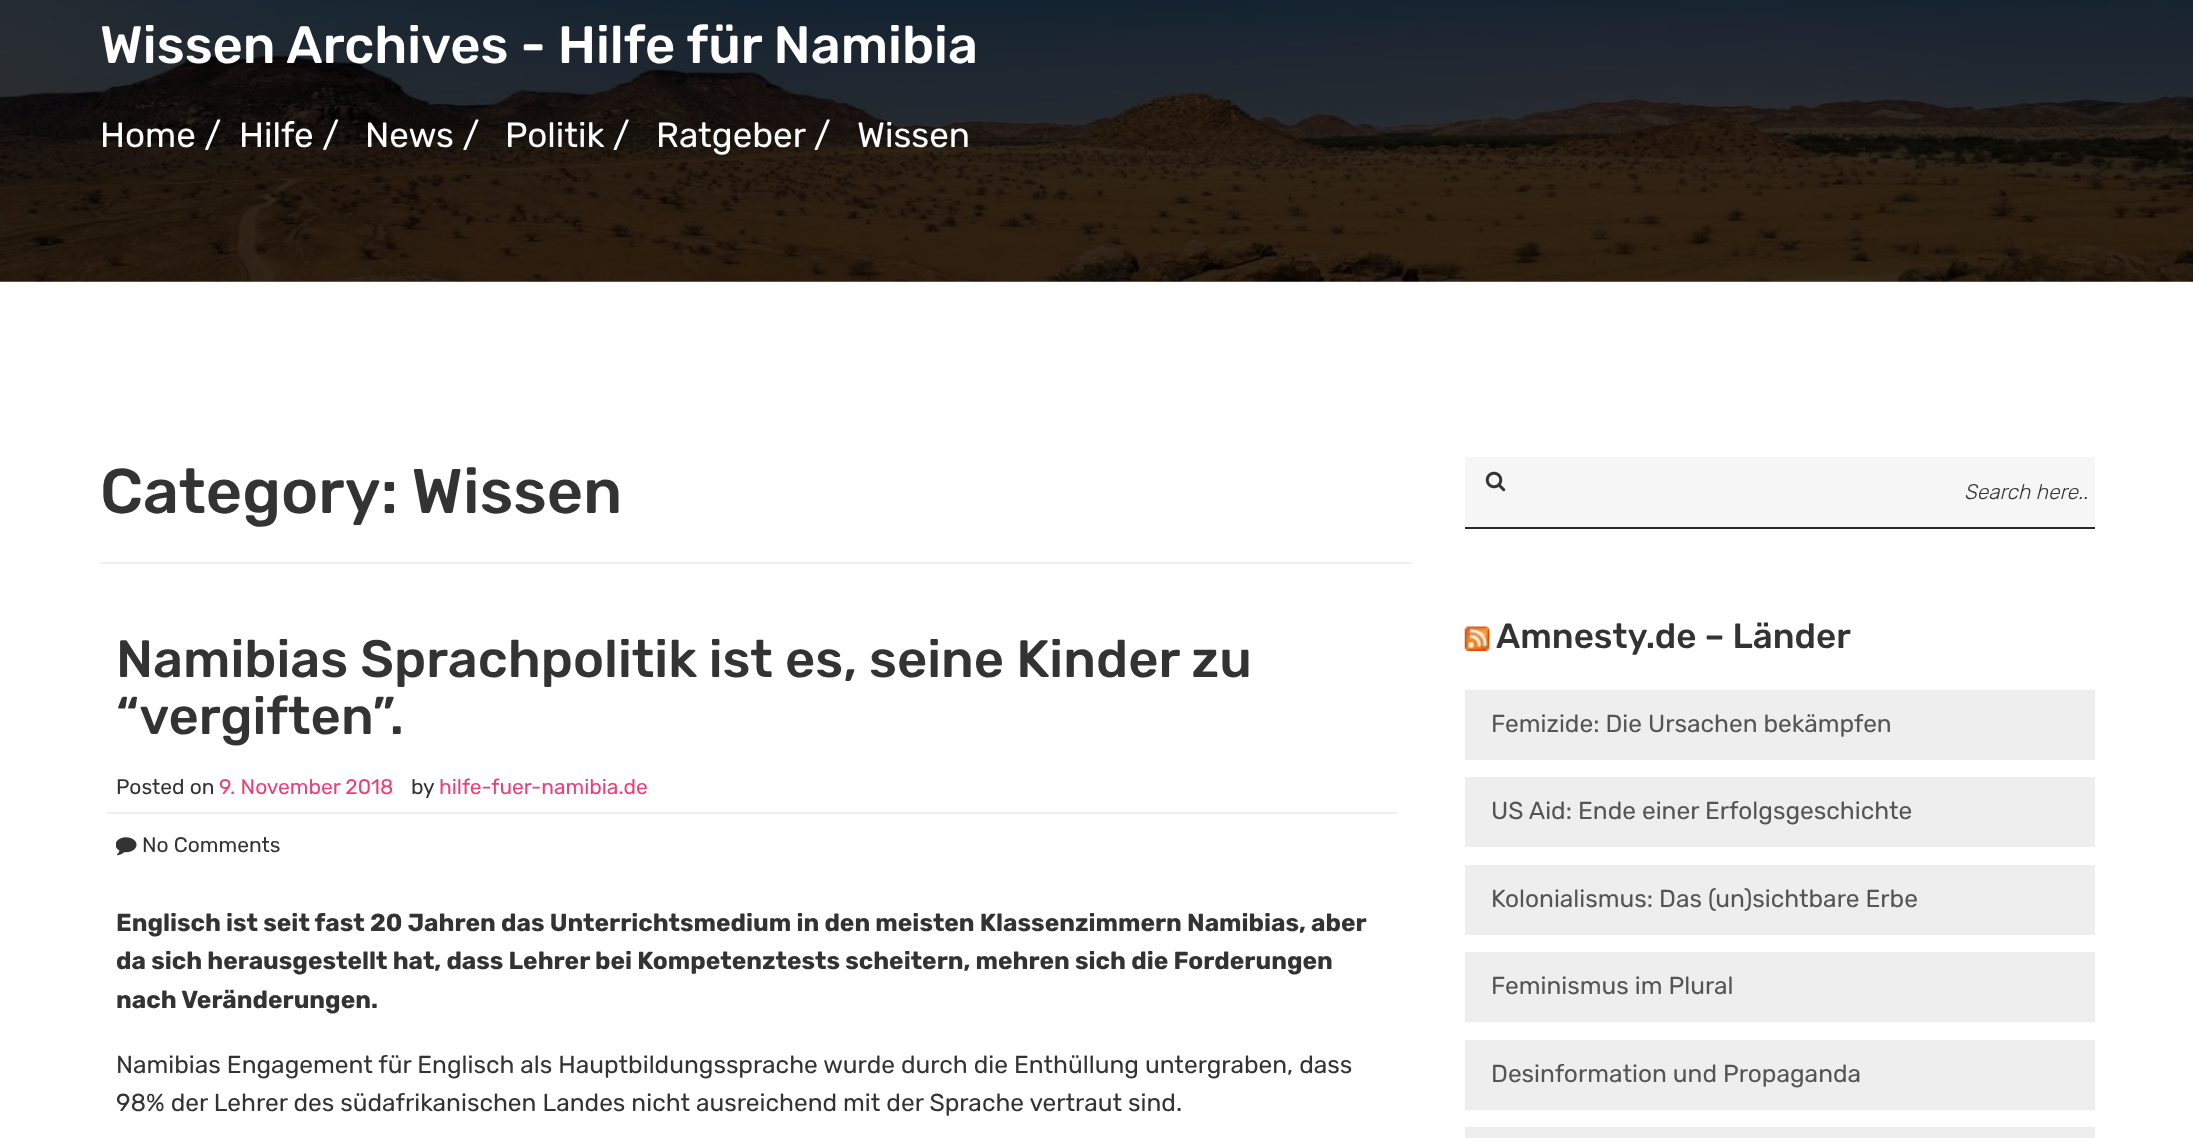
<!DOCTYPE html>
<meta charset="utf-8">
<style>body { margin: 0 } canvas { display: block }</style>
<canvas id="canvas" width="2193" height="1138"></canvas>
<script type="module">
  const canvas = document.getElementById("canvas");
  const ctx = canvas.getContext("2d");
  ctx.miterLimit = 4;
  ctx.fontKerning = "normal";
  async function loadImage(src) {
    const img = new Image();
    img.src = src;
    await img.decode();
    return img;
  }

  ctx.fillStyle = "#ffffff";
  ctx.fillRect(0, 0, 2193, 1138);
  ctx.drawImage(await loadImage("img1.png"), 0, 0, 2193, 282);
  ctx.font = "500 52.5px Rubik";
  ctx.fillText("Wissen Archives - Hilfe für Namibia", 100, 63);
  ctx.font = "35px Rubik";
  ctx.fillText("Home /", 100, 147);
  ctx.fillText("Hilfe /", 239, 147);
  ctx.fillText("News /", 365, 147);
  ctx.fillText("Politik /", 505, 147);
  ctx.fillText("Ratgeber /", 656, 147);
  ctx.fillText("Wissen", 857, 147);
  ctx.fillStyle = "#f0f0f0";
  ctx.fillRect(100, 562, 1312, 2);
  ctx.font = "500 63px Rubik";
  ctx.fillStyle = "#333333";
  ctx.fillText("Category: Wissen", 100, 513);
  ctx.font = "500 52.5px Rubik";
  ctx.fillText("Namibias Sprachpolitik ist es, seine Kinder zu", 116, 677);
  ctx.fillText("“vergiften”.", 116, 734);
  ctx.fillStyle = "#f0efef";
  ctx.fillRect(107, 812, 1290, 2);
  ctx.font = "21px Rubik";
  ctx.fillStyle = "#333333";
  ctx.fillText("Posted on", 116, 794);
  ctx.fillStyle = "#e54378";
  ctx.fillText("9. November 2018", 219, 794);
  ctx.fillStyle = "#333333";
  ctx.fillText("by", 411, 794);
  ctx.fillStyle = "#e54378";
  ctx.fillText("hilfe-fuer-namibia.de", 439, 794);
  ctx.drawImage(await loadImage("img2.png"), 116, 837, 21, 19);
  ctx.fillStyle = "#333333";
  ctx.fillText("No Comments", 142, 852);
  ctx.font = "bold 24.5px Rubik";
  ctx.fillText("Englisch ist seit fast 20 Jahren das Unterrichtsmedium in den meisten Klassenzimmern Namibias, aber", 116, 931);
  ctx.fillText("da sich herausgestellt hat, dass Lehrer bei Kompetenztests scheitern, mehren sich die Forderungen", 116, 969);
  ctx.fillText("nach Veränderungen.", 116, 1008);
  ctx.font = "24.5px Rubik";
  ctx.fillText("Namibias Engagement für Englisch als Hauptbildungssprache wurde durch die Enthüllung untergraben, dass", 116, 1073);
  ctx.fillText("98% der Lehrer des südafrikanischen Landes nicht ausreichend mit der Sprache vertraut sind.", 116, 1111);
  ctx.fillStyle = "#282828";
  ctx.fillRect(1465, 527, 630, 2);
  ctx.fillStyle = "#f6f6f6";
  ctx.fillRect(1465, 457, 630, 70);
  ctx.drawImage(await loadImage("img3.png"), 1485, 471, 21, 21);
  ctx.font = "italic 300 21px Rubik";
  ctx.fillStyle = "#333333";
  ctx.fillText("Search here..", 1964, 499);
  ctx.drawImage(await loadImage("img4.png"), 1464, 626, 26, 25);
  ctx.font = "500 35px Rubik";
  ctx.fillText("Amnesty.de – Länder", 1496, 648);
  ctx.fillStyle = "#eeeeee";
  ctx.fillRect(1465, 690, 630, 70);
  ctx.font = "24.5px Rubik";
  ctx.fillStyle = "#555555";
  ctx.fillText("Femizide: Die Ursachen bekämpfen", 1491, 732);
  ctx.fillStyle = "#eeeeee";
  ctx.fillRect(1465, 777, 630, 70);
  ctx.fillStyle = "#555555";
  ctx.fillText("US Aid: Ende einer Erfolgsgeschichte", 1491, 819);
  ctx.fillStyle = "#eeeeee";
  ctx.fillRect(1465, 865, 630, 70);
  ctx.fillStyle = "#555555";
  ctx.fillText("Kolonialismus: Das (un)sichtbare Erbe", 1491, 907);
  ctx.fillStyle = "#eeeeee";
  ctx.fillRect(1465, 952, 630, 70);
  ctx.fillStyle = "#555555";
  ctx.fillText("Feminismus im Plural", 1491, 994);
  ctx.fillStyle = "#eeeeee";
  ctx.fillRect(1465, 1040, 630, 70);
  ctx.fillStyle = "#555555";
  ctx.fillText("Desinformation und Propaganda", 1491, 1082);
  ctx.fillStyle = "#eeeeee";
  ctx.fillRect(1465, 1127, 630, 11);
</script>
